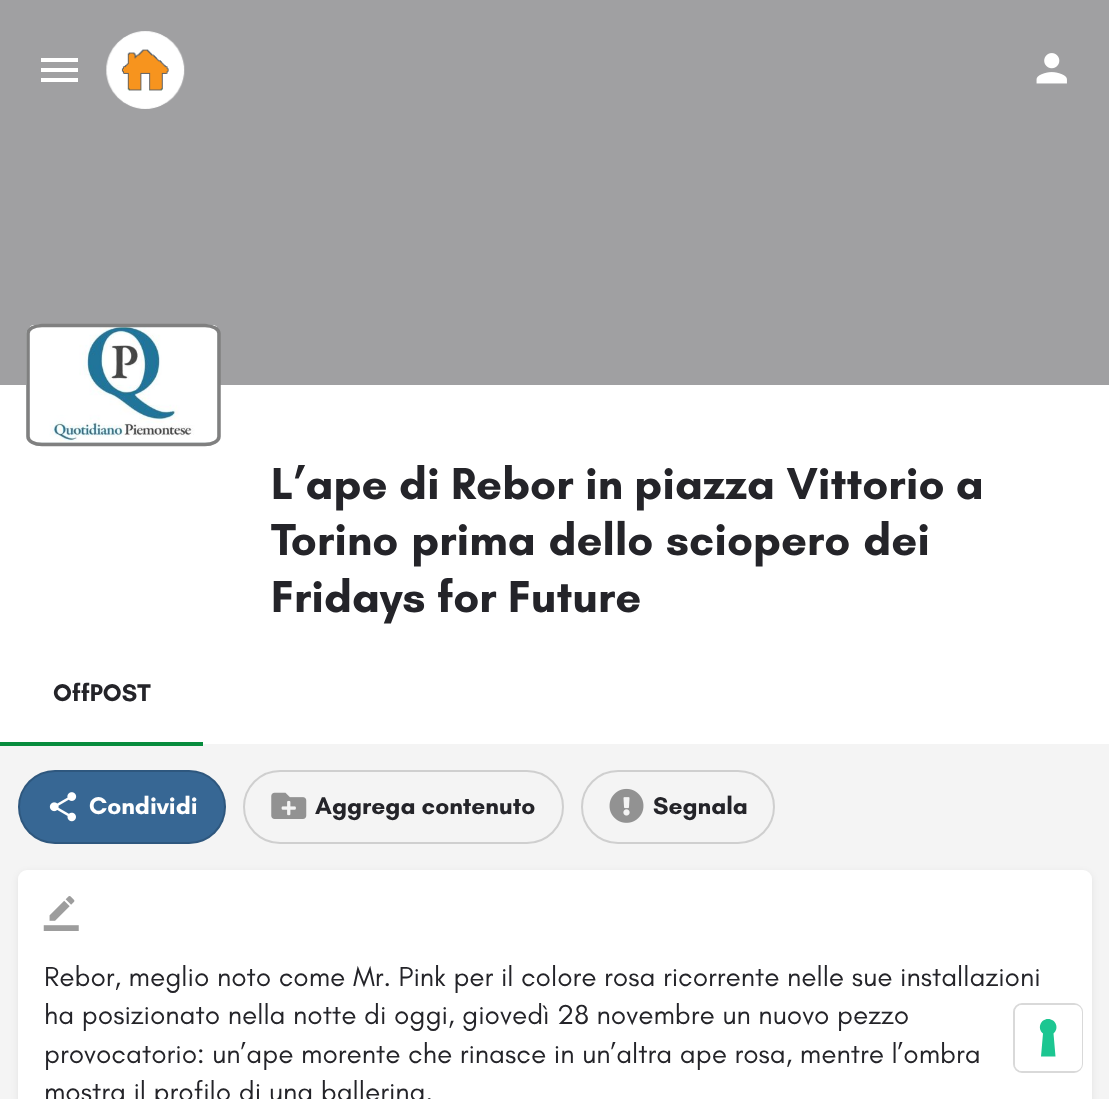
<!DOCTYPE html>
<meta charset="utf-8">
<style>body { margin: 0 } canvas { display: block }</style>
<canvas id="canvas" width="1109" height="1099"></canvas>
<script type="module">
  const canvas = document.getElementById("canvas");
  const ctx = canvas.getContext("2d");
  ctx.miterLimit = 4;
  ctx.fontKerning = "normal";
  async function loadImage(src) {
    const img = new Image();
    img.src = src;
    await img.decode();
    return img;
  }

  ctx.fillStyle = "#f4f4f4";
  ctx.fillRect(0, 0, 1109, 1099);
  ctx.fillStyle = "#a0a0a2";
  ctx.fillRect(0, 0, 1109, 385);
  ctx.fillStyle = "#ffffff";
  ctx.beginPath();
  ctx.moveTo(41, 58);
  ctx.lineTo(78, 58);
  ctx.lineTo(78, 62);
  ctx.lineTo(41, 62);
  ctx.closePath();
  ctx.moveTo(41, 72);
  ctx.lineTo(41, 68);
  ctx.lineTo(78, 68);
  ctx.lineTo(78, 72);
  ctx.closePath();
  ctx.moveTo(41, 82);
  ctx.lineTo(41, 78);
  ctx.lineTo(78, 78);
  ctx.lineTo(78, 82);
  ctx.closePath();
  ctx.fill();
  ctx.drawImage(await loadImage("img1.png"), 106, 31, 79, 78);
  ctx.drawImage(await loadImage("img2.png"), 1036, 53, 31, 31);
  ctx.fillRect(0, 385, 1109, 359);
  ctx.fillStyle = "#dde5e6";
  ctx.beginPath();
  ctx.moveTo(42, 324);
  ctx.lineTo(205, 324);
  ctx.bezierCurveTo(214, 324, 220, 328, 220, 334);
  ctx.lineTo(220, 436);
  ctx.bezierCurveTo(220, 442, 214, 446, 205, 446);
  ctx.lineTo(42, 446);
  ctx.bezierCurveTo(33, 446, 26, 442, 26, 436);
  ctx.lineTo(26, 334);
  ctx.bezierCurveTo(26, 328, 33, 324, 42, 324);
  ctx.closePath();
  ctx.fill();
  ctx.drawImage(await loadImage("img3.png"), 29, 325, 188, 118);
  ctx.beginPath();
  ctx.moveTo(42, 325.5);
  ctx.lineTo(205, 325.5);
  ctx.bezierCurveTo(212.5, 325.5, 219, 329, 219, 333.5);
  ctx.lineTo(219, 436.5);
  ctx.bezierCurveTo(219, 441, 212.5, 444.5, 205, 444.5);
  ctx.lineTo(42, 444.5);
  ctx.bezierCurveTo(34, 444.5, 28, 441, 28, 436.5);
  ctx.lineTo(28, 333.5);
  ctx.bezierCurveTo(28, 329, 34, 325.5, 42, 325.5);
  ctx.closePath();
  ctx.strokeStyle = "#808080";
  ctx.lineWidth = 3.5;
  ctx.stroke();
  ctx.font = "bold 45.5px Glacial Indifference";
  ctx.fillStyle = "#242429";
  ctx.fillText("L’ape di Rebor in piazza Vittorio a", 271, 499);
  ctx.wordSpacing = "1.5px";
  ctx.fillText("Torino prima dello sciopero dei", 271, 555);
  ctx.wordSpacing = "0px";
  ctx.fillText("Fridays for Future", 271, 612);
  ctx.font = "bold 24.5px Glacial Indifference";
  ctx.fillText("OffPOST", 53, 701);
  ctx.fillStyle = "#078c3d";
  ctx.fillRect(0, 742, 203, 4);
  ctx.fillStyle = "#376794";
  ctx.beginPath();
  ctx.roundRect(18, 770, 208, 74, 37);
  ctx.fill();
  ctx.beginPath();
  ctx.roundRect(19, 771, 206, 72, 36);
  ctx.strokeStyle = "rgba(0, 0, 0, 0.15)";
  ctx.lineWidth = 2;
  ctx.stroke();
  ctx.drawImage(await loadImage("img4.png"), 49, 792, 28, 30);
  ctx.fillStyle = "#ffffff";
  ctx.fillText("Condividi", 89, 814);
  ctx.beginPath();
  ctx.roundRect(244, 771, 319, 72, 36);
  ctx.strokeStyle = "#cfcfcf";
  ctx.stroke();
  ctx.drawImage(await loadImage("img5.png"), 271, 792, 36, 27);
  ctx.fillStyle = "#242429";
  ctx.fillText("Aggrega contenuto", 315, 814);
  ctx.beginPath();
  ctx.roundRect(582, 771, 192, 72, 36);
  ctx.stroke();
  ctx.drawImage(await loadImage("img6.png"), 609, 788, 35, 35);
  ctx.fillText("Segnala", 653, 814);
  ctx.fillStyle = "rgba(0, 0, 0, 0.07)";
  ctx.filter = "blur(3.5px)";
  ctx.beginPath();
  ctx.roundRect(18, 872, 1074, 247, 9);
  ctx.fill();
  ctx.filter = "none";
  ctx.fillStyle = "#ffffff";
  ctx.beginPath();
  ctx.roundRect(18, 870, 1074, 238, 9);
  ctx.fill();
  ctx.drawImage(await loadImage("img7.png"), 43, 896, 36, 35);
  ctx.font = "28px Glacial Indifference";
  ctx.fillStyle = "#242429";
  ctx.fillText("Rebor, meglio noto come Mr. Pink per il colore rosa ricorrente nelle sue installazioni", 44, 986);
  ctx.fillText("ha posizionato nella notte di oggi, giovedì 28 novembre un nuovo pezzo", 44, 1024);
  ctx.fillText("provocatorio: un’ape morente che rinasce in un’altra ape rosa, mentre l’ombra", 44, 1063);
  ctx.fillText("mostra il profilo di una ballerina.", 44, 1101);
  ctx.beginPath();
  ctx.roundRect(1014, 1004, 68, 68, 8);
  ctx.strokeStyle = "#d9d9d9";
  ctx.stroke();
  ctx.fillStyle = "#ffffff";
  ctx.beginPath();
  ctx.roundRect(1015, 1005, 67, 66, 7);
  ctx.fill();
  ctx.fillStyle = "#1cc691";
  ctx.beginPath();
  ctx.moveTo(1048, 1019);
  ctx.bezierCurveTo(1056, 1019, 1059.5, 1028.5, 1053.5, 1033.5);
  ctx.lineTo(1055.5, 1056.5);
  ctx.lineTo(1041, 1056.5);
  ctx.lineTo(1043, 1033.5);
  ctx.bezierCurveTo(1037, 1028.5, 1040.5, 1019, 1048, 1019);
  ctx.closePath();
  ctx.fill("evenodd");
</script>
